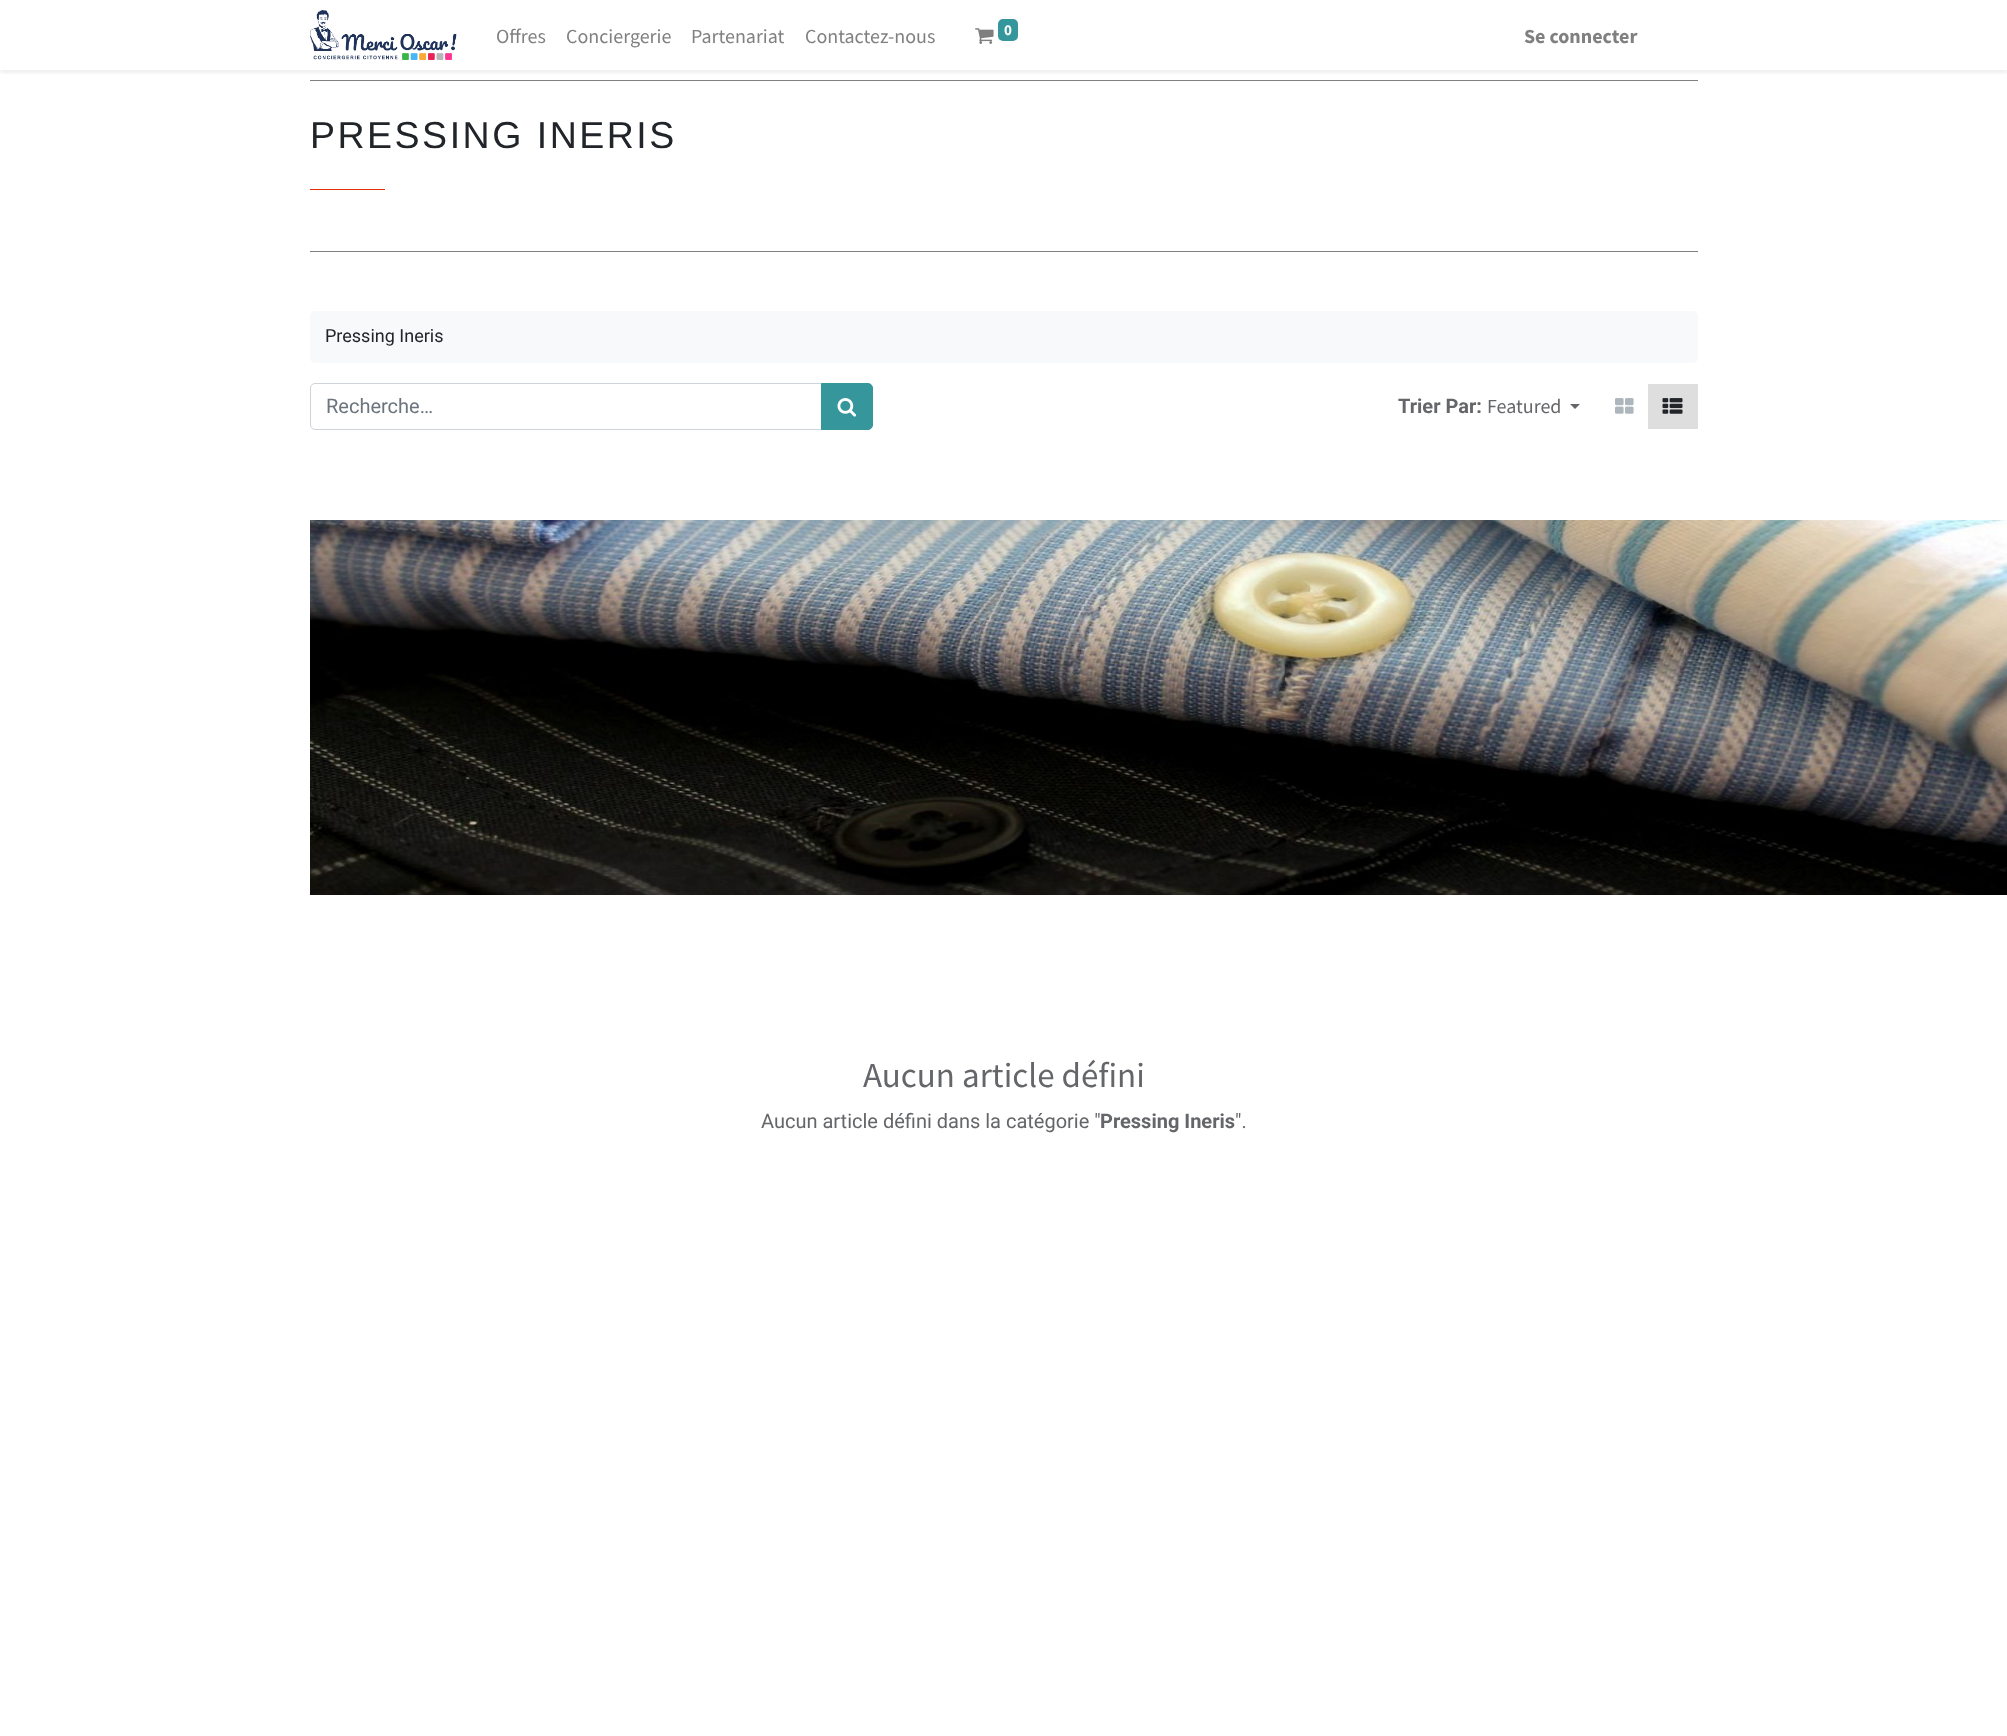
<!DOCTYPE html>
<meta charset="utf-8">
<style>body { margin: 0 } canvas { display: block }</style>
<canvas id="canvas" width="2007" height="1736"></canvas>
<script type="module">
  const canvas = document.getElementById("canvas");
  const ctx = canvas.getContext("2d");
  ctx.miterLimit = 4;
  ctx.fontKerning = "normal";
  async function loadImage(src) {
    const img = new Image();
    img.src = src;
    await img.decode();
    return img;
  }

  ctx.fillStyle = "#ffffff";
  ctx.fillRect(0, 0, 2007, 1736);
  ctx.fillStyle = "#808080";
  ctx.fillRect(310, 80, 1388, 1);
  ctx.save();
  ctx.beginPath();
  ctx.rect(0, 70, 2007, 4);
  ctx.clip();
  ctx.fillStyle = "rgba(0, 0, 0, 0.07)";
  ctx.filter = "blur(2.5px)";
  ctx.beginPath();
  ctx.rect(0, 3, 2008, 70);
  ctx.fill();
  ctx.filter = "none";
  ctx.restore();
  ctx.drawImage(await loadImage("img1.png"), 310, 10, 147, 50);
  ctx.font = "20px Source Sans Pro";
  ctx.fillText("Offres", 496, 43);
  ctx.fillText("Conciergerie", 566, 43);
  ctx.fillText("Partenariat", 691, 43);
  ctx.fillText("Contactez-nous", 805, 43);
  ctx.drawImage(await loadImage("img2.png"), 975, 28, 19, 16);
  ctx.fillStyle = "#35979c";
  ctx.beginPath();
  ctx.roundRect(998, 19, 20, 22, 5);
  ctx.fill();
  ctx.font = "bold 15px Source Sans Pro";
  ctx.fillStyle = "#ffffff";
  ctx.fillText("0", 1004, 35);
  ctx.font = "bold 20px Source Sans Pro";
  ctx.fillStyle = "#808080";
  ctx.fillText("Se connecter", 1524, 43);
  ctx.fillRect(310, 251, 1388, 1);
  ctx.letterSpacing = "2.5px";
  ctx.font = "37.5px Liberation Sans";
  ctx.fillStyle = "#212529";
  ctx.fillText("PRESSING INERIS", 310, 148);
  ctx.fillStyle = "#e52e06";
  ctx.fillRect(310, 189, 75, 1);
  ctx.fillStyle = "#f8f9fa";
  ctx.beginPath();
  ctx.roundRect(310, 311, 1388, 52, 5);
  ctx.fill();
  ctx.letterSpacing = "0px";
  ctx.font = "18px Roboto";
  ctx.fillStyle = "#212529";
  ctx.fillText("Pressing Ineris", 325, 342);
  ctx.beginPath();
  ctx.roundRect(310.5, 383.5, 512, 46, [4.5, 0, 0, 4.5]);
  ctx.strokeStyle = "#ced4da";
  ctx.stroke();
  ctx.font = "20px Roboto";
  ctx.fillStyle = "#6c757d";
  ctx.fillText("Recherche…", 326, 413);
  ctx.fillStyle = "#35979c";
  ctx.beginPath();
  ctx.roundRect(821.5, 383.5, 51, 46, [0, 4.5, 4.5, 0]);
  ctx.fill();
  ctx.strokeStyle = "#35979c";
  ctx.stroke();
  ctx.drawImage(await loadImage("img3.png"), 837, 398, 20, 19);
  ctx.font = "bold 20px Roboto";
  ctx.fillStyle = "#646669";
  ctx.fillText("Trier Par:", 1398, 413);
  ctx.font = "20px Source Sans Pro";
  ctx.fillText("Featured", 1487, 413);
  ctx.beginPath();
  ctx.moveTo(1570, 404);
  ctx.lineTo(1580, 404);
  ctx.lineTo(1575, 409);
  ctx.closePath();
  ctx.fill();
  ctx.drawImage(await loadImage("img4.png"), 1615, 398, 19, 16);
  ctx.fillStyle = "#dedede";
  ctx.fillRect(1648, 384, 50, 45);
  ctx.drawImage(await loadImage("img5.png"), 1662, 398, 21, 16);
  ctx.drawImage(await loadImage("img6.png"), 310, 520, 1697, 375);
  ctx.font = "35px Source Sans Pro";
  ctx.fillStyle = "#646669";
  ctx.fillText("Aucun article défini", 863, 1087);
  ctx.font = "20px Roboto";
  ctx.fillText("Aucun article défini dans la catégorie \"", 761, 1128);
  ctx.font = "bold 20px Roboto";
  ctx.fillText("Pressing Ineris", 1100, 1128);
  ctx.font = "20px Roboto";
  ctx.fillText("\".", 1235, 1128);
</script>
